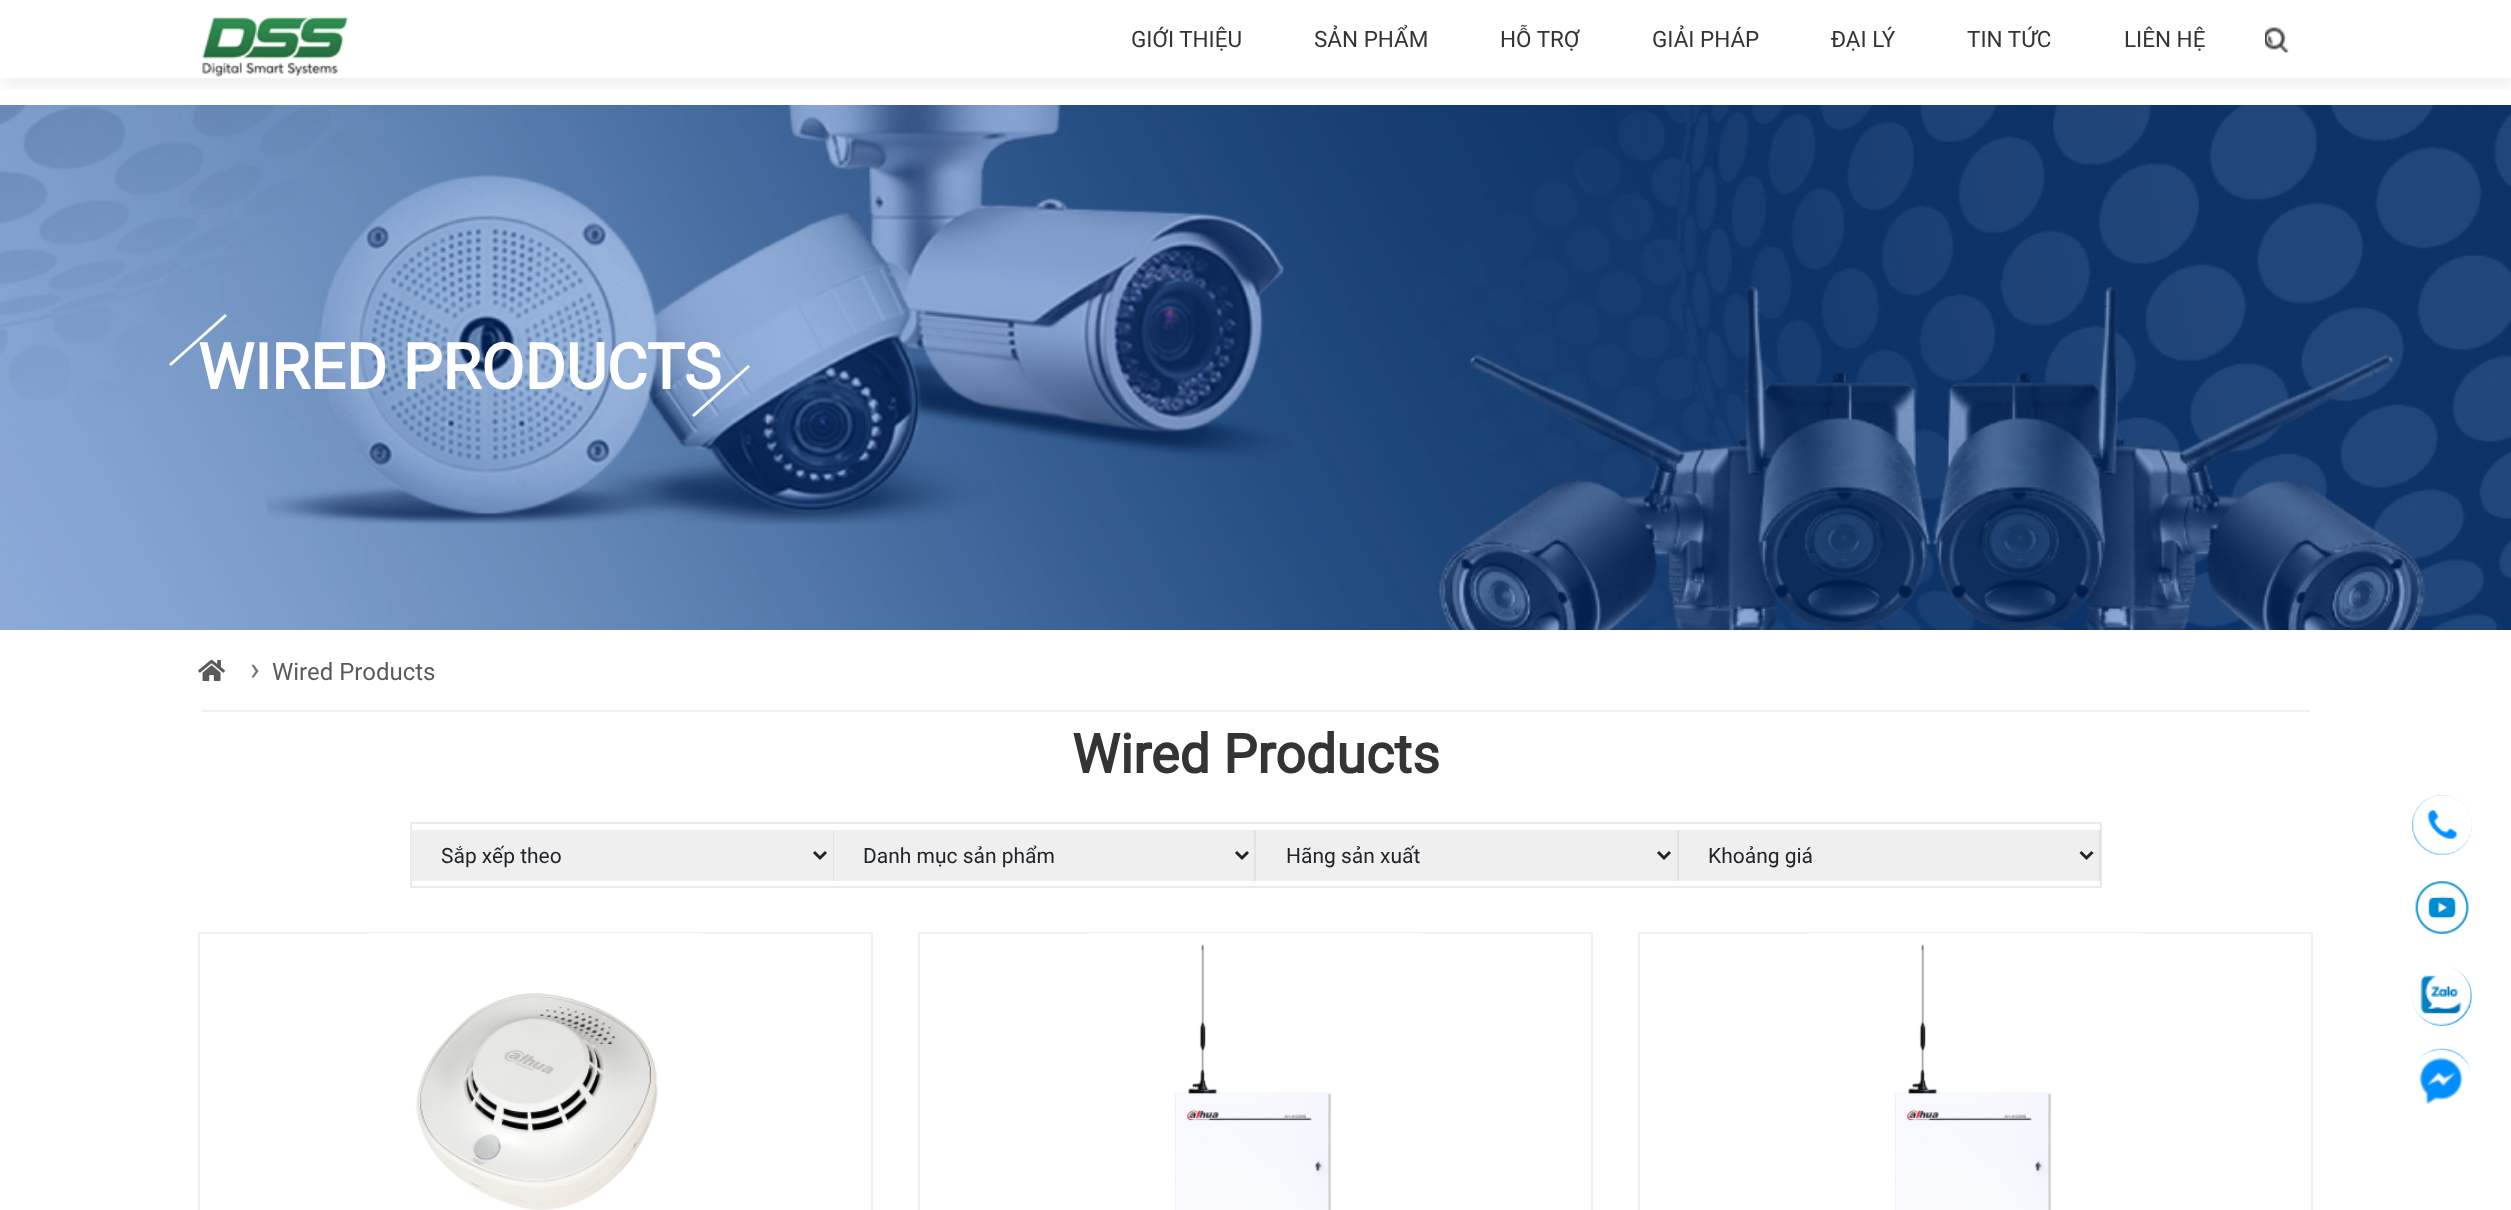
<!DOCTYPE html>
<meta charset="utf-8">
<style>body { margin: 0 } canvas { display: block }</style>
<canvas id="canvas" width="2511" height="1210"></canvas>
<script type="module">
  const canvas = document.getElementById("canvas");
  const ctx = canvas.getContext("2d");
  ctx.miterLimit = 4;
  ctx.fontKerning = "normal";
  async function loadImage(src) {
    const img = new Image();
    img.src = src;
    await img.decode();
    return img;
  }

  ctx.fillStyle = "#ffffff";
  ctx.fillRect(0, 0, 2511, 1210);
  ctx.save();
  ctx.beginPath();
  ctx.rect(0, 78, 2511, 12);
  ctx.clip();
  ctx.fillStyle = "rgba(0, 0, 0, 0.06)";
  ctx.filter = "blur(7px)";
  ctx.beginPath();
  ctx.rect(2, 9, 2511, 78);
  ctx.fill();
  ctx.filter = "none";
  ctx.restore();
  ctx.drawImage(await loadImage("img1.png"), 202, 16, 147, 61);
  ctx.font = "22.5px Roboto";
  ctx.fillStyle = "#343434";
  ctx.fillText("GIỚI THIỆU", 1131, 47);
  ctx.fillText("SẢN PHẨM", 1314, 47);
  ctx.fillText("HỖ TRỢ", 1500, 47);
  ctx.fillText("GIẢI PHÁP", 1652, 47);
  ctx.fillText("ĐẠI LÝ", 1831, 47);
  ctx.fillText("TIN TỨC", 1967, 47);
  ctx.fillText("LIÊN HỆ", 2124, 47);
  ctx.drawImage(await loadImage("img2.png"), 2265, 27, 24, 26);
  ctx.drawImage(await loadImage("img3.png"), 0, 105, 2511, 525);
  ctx.fillStyle = "#ffffff";
  ctx.beginPath();
  ctx.moveTo(227, 316);
  ctx.lineTo(171, 366);
  ctx.lineTo(169, 364);
  ctx.lineTo(225, 314);
  ctx.closePath();
  ctx.fill();
  ctx.font = "bold 63px Roboto";
  ctx.fillText("WIRED PRODUCTS", 198, 389);
  ctx.beginPath();
  ctx.moveTo(750, 367);
  ctx.lineTo(694, 417);
  ctx.lineTo(692, 415);
  ctx.lineTo(748, 365);
  ctx.closePath();
  ctx.fill();
  ctx.fillStyle = "#f0f0f0";
  ctx.fillRect(201, 710, 2109, 2);
  ctx.drawImage(await loadImage("img4.png"), 198, 660, 27, 21);
  ctx.font = "33px Roboto";
  ctx.fillStyle = "#6c757d";
  ctx.fillText("›", 250, 680);
  ctx.font = "24px Roboto";
  ctx.fillStyle = "#5a5a5a";
  ctx.fillText("Wired Products", 272, 680);
  ctx.font = "bold 54px Roboto";
  ctx.fillStyle = "#343434";
  ctx.fillText("Wired Products", 1072, 773);
  ctx.strokeStyle = "#eaeaea";
  ctx.lineWidth = 2;
  ctx.strokeRect(411, 823, 1690, 64);
  ctx.fillStyle = "#efefef";
  ctx.fillRect(411, 830, 422, 51);
  ctx.fillStyle = "#e2e2e2";
  ctx.fillRect(833, 830, 1, 51);
  ctx.beginPath();
  ctx.moveTo(814, 852);
  ctx.lineTo(820, 858);
  ctx.lineTo(826, 852);
  ctx.strokeStyle = "#212529";
  ctx.lineWidth = 3;
  ctx.stroke();
  ctx.font = "21px Roboto";
  ctx.fillStyle = "#212529";
  ctx.fillText("Sắp xếp theo", 441, 863);
  ctx.fillStyle = "#efefef";
  ctx.fillRect(834, 830, 420, 51);
  ctx.fillStyle = "#e2e2e2";
  ctx.fillRect(1254, 830, 2, 51);
  ctx.beginPath();
  ctx.moveTo(1236, 852);
  ctx.lineTo(1242, 858);
  ctx.lineTo(1248, 852);
  ctx.stroke();
  ctx.fillStyle = "#212529";
  ctx.fillText("Danh mục sản phẩm", 863, 863);
  ctx.fillStyle = "#efefef";
  ctx.fillRect(1256, 830, 421, 51);
  ctx.fillStyle = "#e2e2e2";
  ctx.fillRect(1677, 830, 2, 51);
  ctx.beginPath();
  ctx.moveTo(1658, 852);
  ctx.lineTo(1664, 858);
  ctx.lineTo(1670, 852);
  ctx.stroke();
  ctx.fillStyle = "#212529";
  ctx.fillText("Hãng sản xuất", 1286, 863);
  ctx.fillStyle = "#efefef";
  ctx.fillRect(1679, 830, 421, 51);
  ctx.fillStyle = "rgba(212, 212, 212, 0.5)";
  ctx.fillRect(2099, 830, 2, 51);
  ctx.beginPath();
  ctx.moveTo(2080.5, 852);
  ctx.lineTo(2086.5, 858);
  ctx.lineTo(2092.5, 852);
  ctx.stroke();
  ctx.fillStyle = "#212529";
  ctx.fillText("Khoảng giá", 1708, 863);
  ctx.strokeStyle = "#f0f0f0";
  ctx.lineWidth = 2;
  ctx.strokeRect(199, 933, 673, 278);
  ctx.drawImage(await loadImage("img5.png"), 367, 933, 337, 277);
  ctx.strokeRect(919, 933, 673, 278);
  ctx.drawImage(await loadImage("img6.png"), 1087, 933, 337, 277);
  ctx.strokeRect(1639, 933, 673, 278);
  ctx.drawImage(await loadImage("img7.png"), 1807, 933, 337, 277);
  ctx.drawImage(await loadImage("img8.png"), 2412, 795, 60, 60);
  ctx.drawImage(await loadImage("img9.png"), 2415, 881, 54, 53);
  ctx.drawImage(await loadImage("img10.png"), 2412, 966, 60, 60);
  ctx.drawImage(await loadImage("img11.png"), 2417, 1048, 54, 56);
</script>
